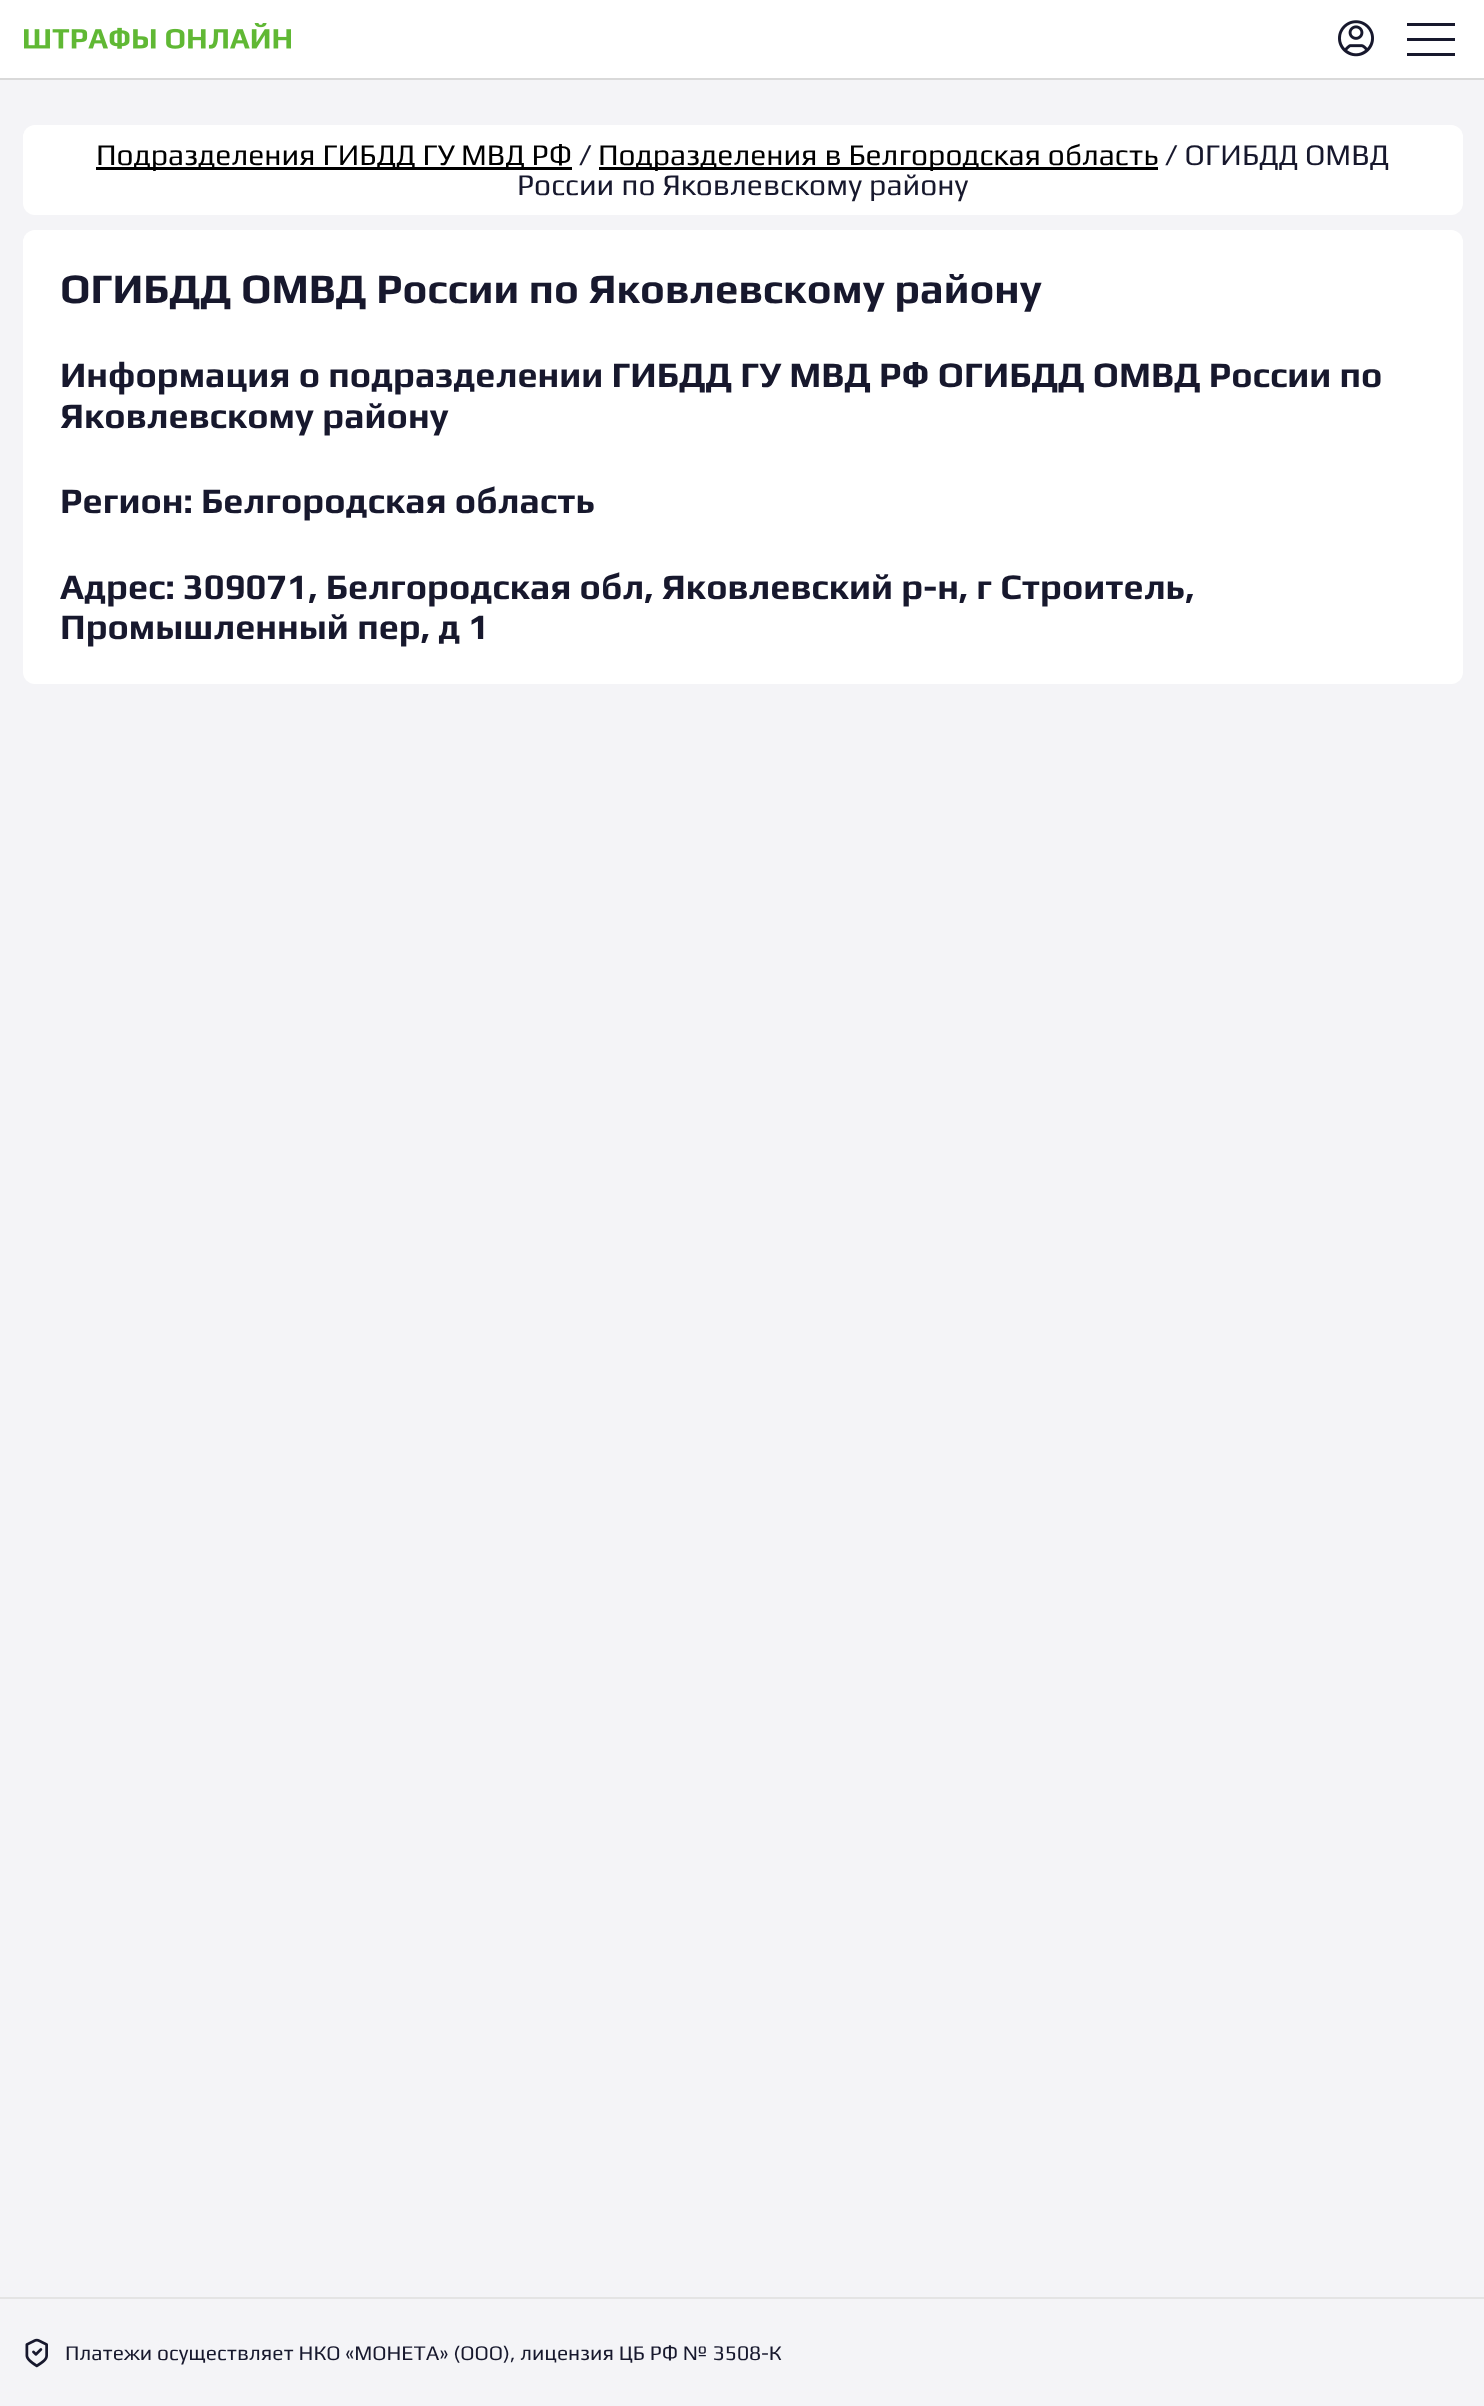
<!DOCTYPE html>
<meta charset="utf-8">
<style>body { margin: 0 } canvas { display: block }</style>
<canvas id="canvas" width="1484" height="2406"></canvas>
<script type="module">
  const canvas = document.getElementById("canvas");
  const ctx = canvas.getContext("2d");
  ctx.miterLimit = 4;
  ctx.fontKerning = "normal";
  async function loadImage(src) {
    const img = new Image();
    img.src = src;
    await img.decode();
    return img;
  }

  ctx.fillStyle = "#f4f4f7";
  ctx.fillRect(0, 0, 1484, 2406);
  ctx.fillStyle = "#ffffff";
  ctx.fillRect(0, 0, 1484, 78);
  ctx.fillStyle = "#d9d9d9";
  ctx.fillRect(0, 78, 1484, 2);
  ctx.drawImage(await loadImage("img1.png"), 24, 23, 267, 26);
  ctx.drawImage(await loadImage("img2.png"), 1338, 20, 36, 37);
  ctx.fillStyle = "#17182d";
  ctx.fillRect(1407, 23, 48, 3);
  ctx.fillRect(1407, 53, 48, 3);
  ctx.fillRect(1407, 38, 48, 3);
  ctx.fillStyle = "#ffffff";
  ctx.beginPath();
  ctx.roundRect(23, 125, 1440, 90, 12);
  ctx.fill();
  ctx.fillStyle = "#000000";
  ctx.fillRect(96, 167, 476, 3);
  ctx.font = "30px Play";
  ctx.fillText("Подразделения ГИБДД ГУ МВД РФ", 96, 165);
  ctx.fillStyle = "#17182d";
  ctx.fillText("/", 579, 165);
  ctx.fillStyle = "#000000";
  ctx.fillRect(599, 167, 559, 3);
  ctx.fillText("Подразделения в Белгородская область", 598, 165);
  ctx.fillStyle = "#17182d";
  ctx.fillText("/ ОГИБДД ОМВД", 1165, 165);
  ctx.fillText("России по Яковлевскому району", 517, 195);
  ctx.fillStyle = "#ffffff";
  ctx.beginPath();
  ctx.roundRect(23, 230, 1440, 454, 12);
  ctx.fill();
  ctx.font = "bold 42px Play";
  ctx.fillStyle = "#17182d";
  ctx.fillText("ОГИБДД ОМВД России по Яковлевскому району", 60, 303);
  ctx.font = "bold 36px Play";
  ctx.fillText("Информация о подразделении ГИБДД ГУ МВД РФ ОГИБДД ОМВД России по", 60, 387);
  ctx.fillText("Яковлевскому району", 60, 428);
  ctx.fillText("Регион: Белгородская область", 60, 513);
  ctx.fillText("Адрес: 309071, Белгородская обл, Яковлевский р-н, г Строитель,", 60, 599);
  ctx.fillText("Промышленный пер, д 1", 60, 639);
  ctx.fillStyle = "#e4e4e4";
  ctx.fillRect(0, 2297, 1484, 2);
  ctx.drawImage(await loadImage("img3.png"), 25, 2338, 23, 30);
  ctx.font = "21px Play";
  ctx.fillStyle = "#17182d";
  ctx.fillText("Платежи осуществляет НКО «МОНЕТА» (ООО), лицензия ЦБ РФ № 3508-К", 65, 2360);
</script>
